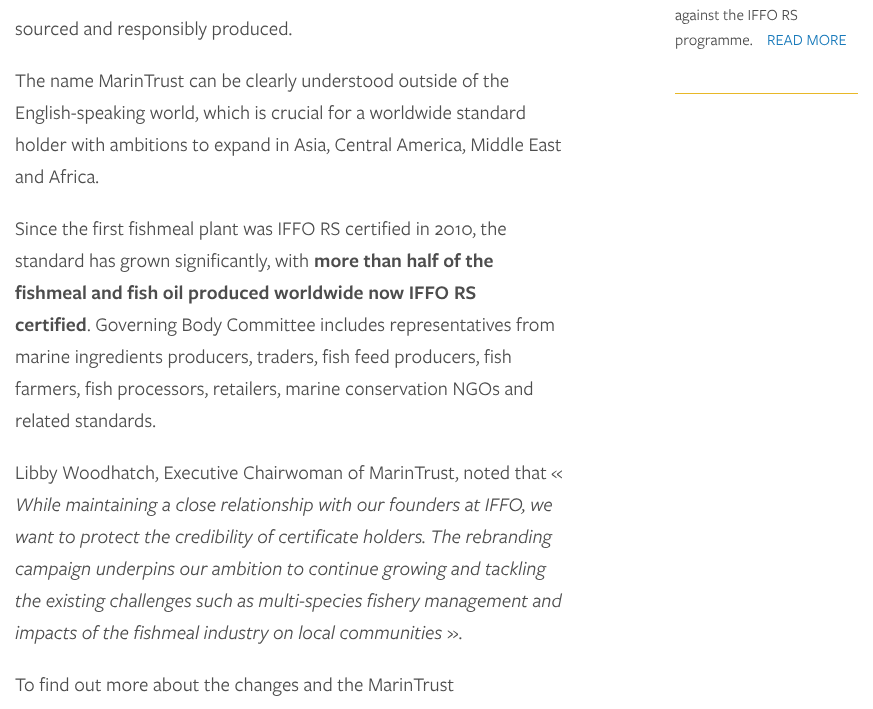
<!DOCTYPE html>
<meta charset="utf-8">
<style>body { margin: 0 } canvas { display: block }</style>
<canvas id="canvas" width="873" height="709"></canvas>
<script type="module">
  const canvas = document.getElementById("canvas");
  const ctx = canvas.getContext("2d");
  ctx.miterLimit = 4;
  ctx.fontKerning = "normal";

  ctx.fillStyle = "#ffffff";
  ctx.fillRect(0, 0, 873, 709);
  ctx.font = "20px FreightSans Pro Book";
  ctx.fillStyle = "#4d4d4d";
  ctx.fillText("sourced and responsibly produced.", 15, 35);
  ctx.fillText("The name MarinTrust can be clearly understood outside of the", 15, 87);
  ctx.fillText("English-speaking world, which is crucial for a worldwide standard", 15, 119);
  ctx.fillText("holder with ambitions to expand in Asia, Central America, Middle East", 15, 151);
  ctx.fillText("and Africa.", 15, 183);
  ctx.fillText("Since the first fishmeal plant was IFFO RS certified in 2010, the", 15, 235);
  ctx.fillText("standard has grown significantly, with", 15, 267);
  ctx.font = "600 20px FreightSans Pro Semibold";
  ctx.fillText("more than half of the", 314, 267);
  ctx.fillText("fishmeal and fish oil produced worldwide now IFFO RS", 15, 299);
  ctx.fillText("certified", 15, 331);
  ctx.font = "20px FreightSans Pro Book";
  ctx.fillText(". Governing Body Committee includes representatives from", 87, 331);
  ctx.fillText("marine ingredients producers, traders, fish feed producers, fish", 15, 363);
  ctx.fillText("farmers, fish processors, retailers, marine conservation NGOs and", 15, 395);
  ctx.fillText("related standards.", 15, 427);
  ctx.fillText("Libby Woodhatch, Executive Chairwoman of MarinTrust, noted that «", 15, 479);
  ctx.font = "italic 20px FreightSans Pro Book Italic";
  ctx.fillText("While maintaining a close relationship with our founders at IFFO, we", 15, 511);
  ctx.fillText("want to protect the credibility of certificate holders. The rebranding", 15, 543);
  ctx.fillText("campaign underpins our ambition to continue growing and tackling", 15, 575);
  ctx.fillText("the existing challenges such as multi-species fishery management and", 15, 607);
  ctx.fillText("impacts of the fishmeal industry on local communities", 15, 639);
  ctx.font = "20px FreightSans Pro Book";
  ctx.fillText("».", 447, 639);
  ctx.fillText("To find out more about the changes and the MarinTrust", 15, 691);
  ctx.fillStyle = "#e8b828";
  ctx.fillRect(675, 93, 183, 1);
  ctx.font = "16px FreightSans Pro Book";
  ctx.fillStyle = "#4d4d4d";
  ctx.fillText("against the IFFO RS", 675, 20);
  ctx.fillText("programme.", 675, 45);
  ctx.fillStyle = "#1779ba";
  ctx.fillText("READ MORE", 767, 45);
</script>
